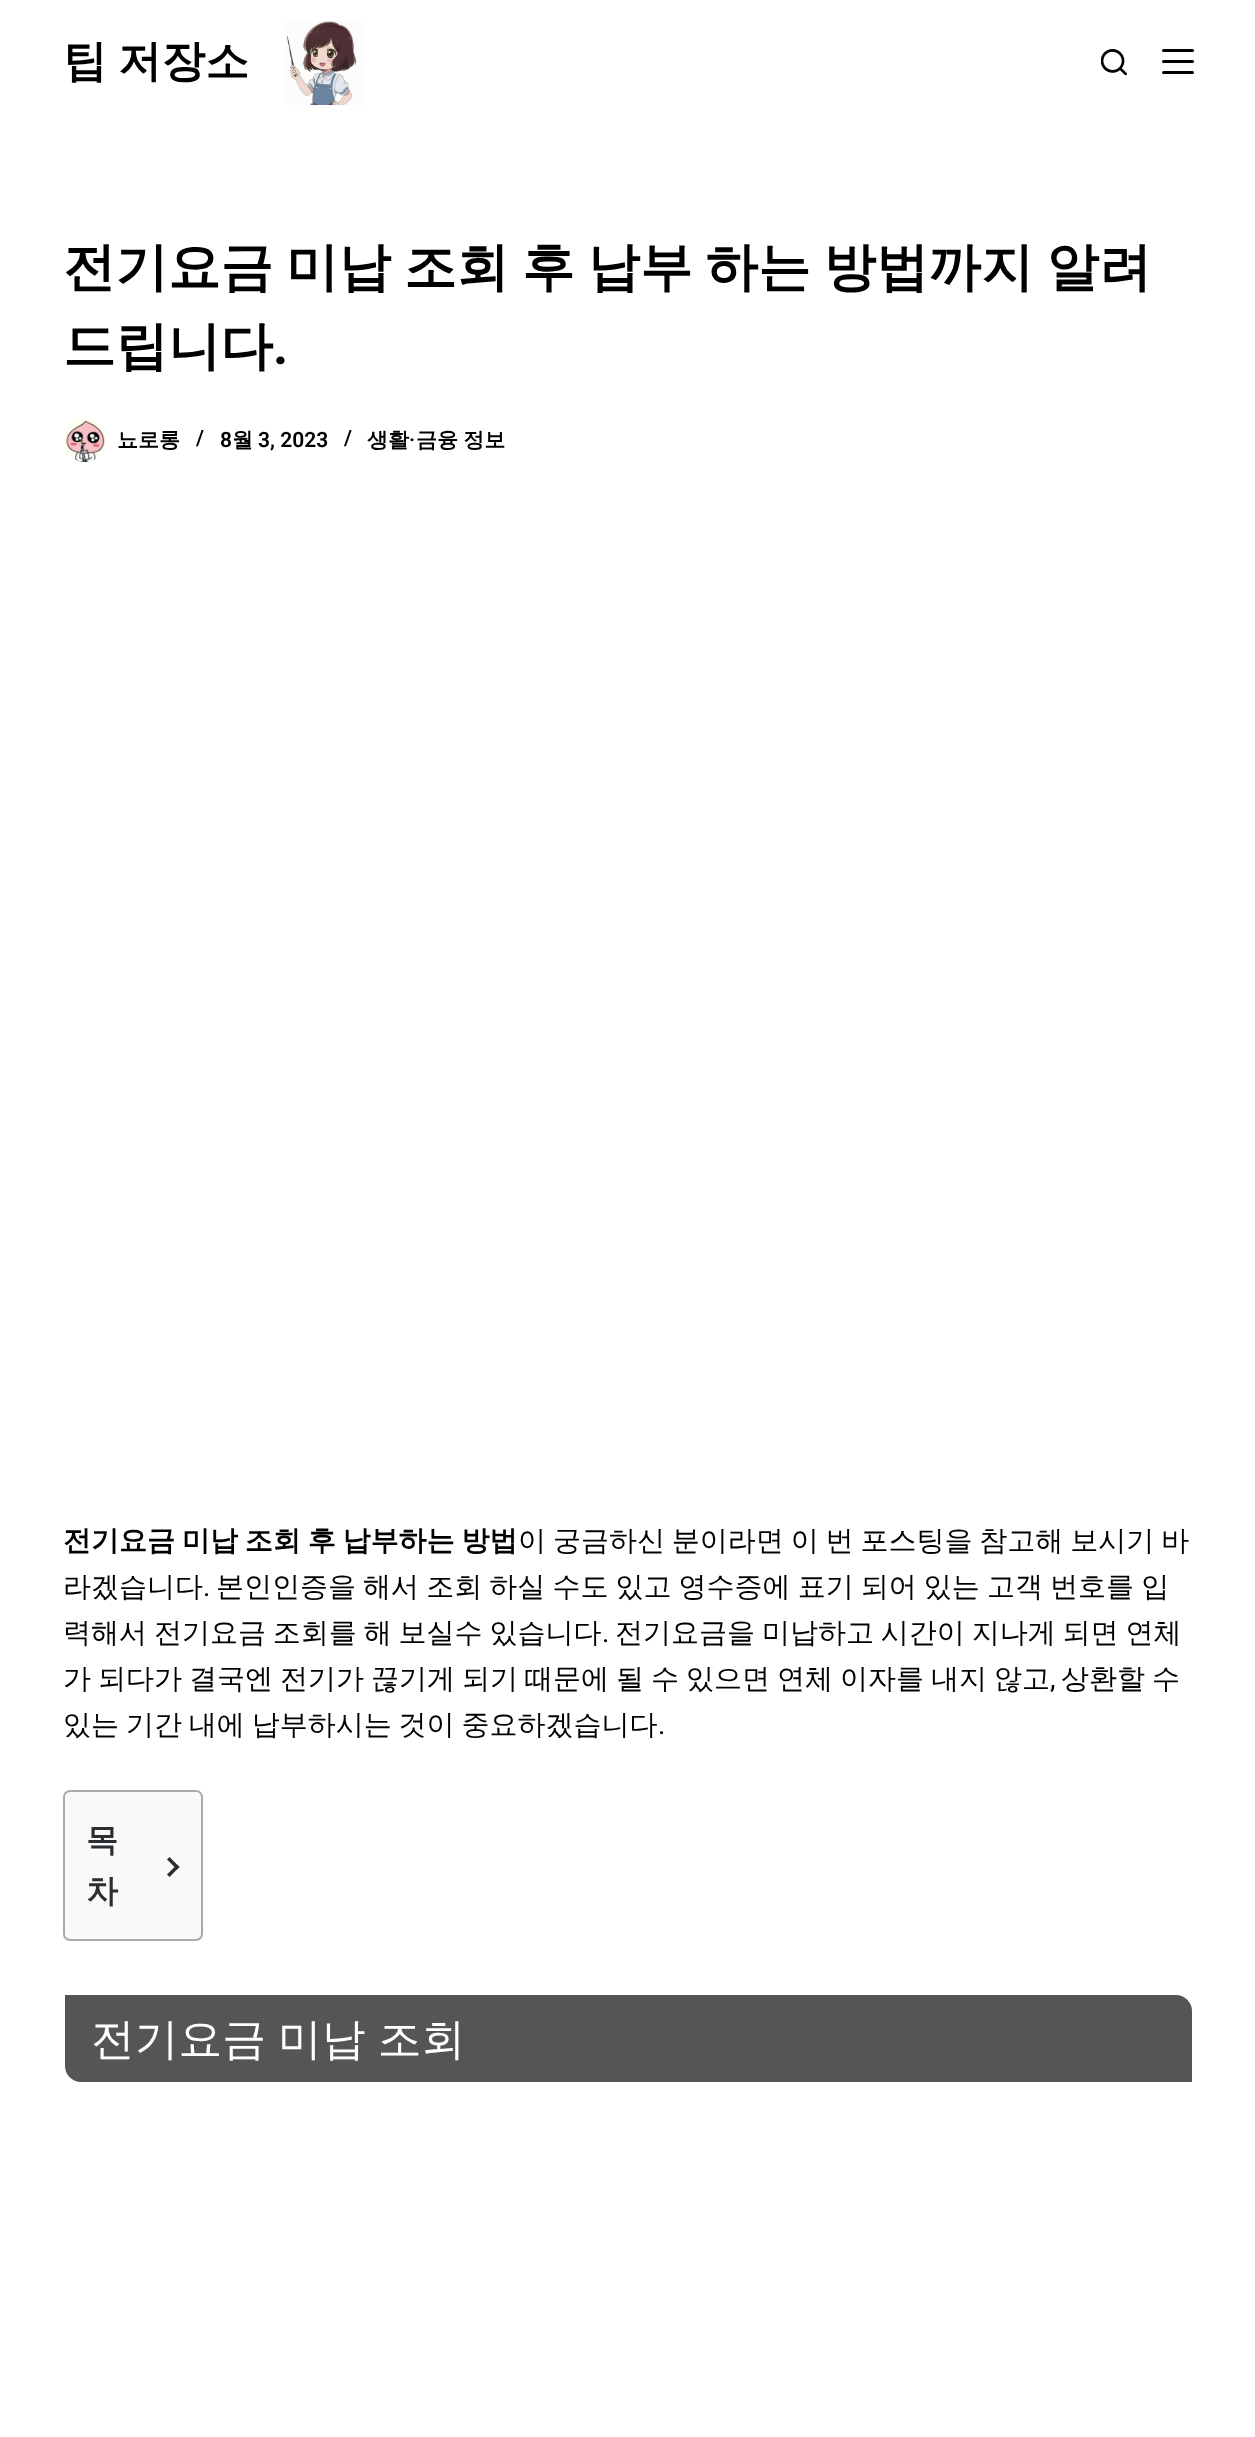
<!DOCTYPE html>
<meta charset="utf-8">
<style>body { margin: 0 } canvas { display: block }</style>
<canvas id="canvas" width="1255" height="2437"></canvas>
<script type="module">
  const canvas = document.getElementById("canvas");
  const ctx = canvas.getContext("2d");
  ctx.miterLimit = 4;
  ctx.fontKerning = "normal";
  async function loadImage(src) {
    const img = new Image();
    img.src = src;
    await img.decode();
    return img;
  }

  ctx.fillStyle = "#ffffff";
  ctx.fillRect(0, 0, 1255, 2437);
  ctx.wordSpacing = "-2px";
  ctx.font = "bold 43.75px WenQuanYi Zen Hei";
  ctx.fillStyle = "#000000";
  ctx.fillText("팁 저장소", 63, 76);
  ctx.drawImage(await loadImage("img1.png"), 286, 21, 78, 84);
  ctx.drawImage(await loadImage("img2.png"), 1101, 49, 26, 26);
  ctx.beginPath();
  ctx.roundRect(1162, 49, 32, 3, 1.5);
  ctx.fill();
  ctx.beginPath();
  ctx.roundRect(1162, 60, 32, 3, 1.5);
  ctx.fill();
  ctx.beginPath();
  ctx.roundRect(1162, 71, 32, 3, 1.5);
  ctx.fill();
  ctx.wordSpacing = "-2.75px";
  ctx.font = "bold 52.5px WenQuanYi Zen Hei";
  ctx.fillText("전기요금 미납 조회 후 납부 하는 방법까지 알려", 63, 285);
  ctx.wordSpacing = "0px";
  ctx.fillText("드립니다", 63, 364);
  ctx.font = "bold 52.5px Roboto";
  ctx.fillText(".", 273, 364);
  ctx.drawImage(await loadImage("img3.png"), 63, 418, 44, 44);
  ctx.font = "bold 21px WenQuanYi Zen Hei";
  ctx.fillText("뇨로롱", 117, 447);
  ctx.font = "600 21px Roboto";
  ctx.fillText("/", 196, 445);
  ctx.fillText("8", 220, 447);
  ctx.font = "bold 21px WenQuanYi Zen Hei";
  ctx.fillText("월", 232, 447);
  ctx.font = "600 21px Roboto";
  ctx.fillText("3, 2023", 258, 447);
  ctx.fillText("/", 344, 445);
  ctx.font = "bold 21px WenQuanYi Zen Hei";
  ctx.fillText("생활", 367, 447);
  ctx.font = "600 21px Roboto";
  ctx.fillText("·", 409, 447);
  ctx.wordSpacing = "-1px";
  ctx.font = "bold 21px WenQuanYi Zen Hei";
  ctx.fillText("금융 정보", 416, 447);
  ctx.wordSpacing = "-1.5px";
  ctx.font = "bold 28px WenQuanYi Zen Hei";
  ctx.fillText("전기요금 미납 조회 후 납부하는 방법", 63, 1550);
  ctx.font = "500 28px WenQuanYi Zen Hei";
  ctx.fillText("이 궁금하신 분이라면 이 번 포스팅을 참고해 보시기 바", 518, 1550);
  ctx.wordSpacing = "0px";
  ctx.fillText("라겠습니다", 63, 1596);
  ctx.font = "28px Roboto";
  ctx.fillText(".", 203, 1596);
  ctx.wordSpacing = "-1.3px";
  ctx.font = "500 28px WenQuanYi Zen Hei";
  ctx.fillText("본인인증을 해서 조회 하실 수도 있고 영수증에 표기 되어 있는 고객 번호를 입", 216, 1596);
  ctx.wordSpacing = "-1.5px";
  ctx.fillText("력해서 전기요금 조회를 해 보실수 있습니다", 63, 1642);
  ctx.wordSpacing = "0px";
  ctx.font = "28px Roboto";
  ctx.fillText(".", 602, 1642);
  ctx.wordSpacing = "-1.5px";
  ctx.font = "500 28px WenQuanYi Zen Hei";
  ctx.fillText("전기요금을 미납하고 시간이 지나게 되면 연체", 615, 1642);
  ctx.wordSpacing = "-1.4px";
  ctx.fillText("가 되다가 결국엔 전기가 끊기게 되기 때문에 될 수 있으면 연체 이자를 내지 않고", 63, 1688);
  ctx.wordSpacing = "0px";
  ctx.font = "28px Roboto";
  ctx.fillText(",", 1050, 1688);
  ctx.wordSpacing = "-1.4px";
  ctx.font = "500 28px WenQuanYi Zen Hei";
  ctx.fillText("상환할 수", 1061, 1688);
  ctx.wordSpacing = "-1.5px";
  ctx.fillText("있는 기간 내에 납부하시는 것이 중요하겠습니다", 63, 1734);
  ctx.wordSpacing = "0px";
  ctx.font = "28px Roboto";
  ctx.fillText(".", 658, 1734);
  ctx.fillStyle = "#f9f9f9";
  ctx.beginPath();
  ctx.roundRect(64, 1791, 138, 149, 6);
  ctx.fill();
  ctx.strokeStyle = "#aaaaaa";
  ctx.lineWidth = 2;
  ctx.stroke();
  ctx.font = "bold 32px WenQuanYi Zen Hei";
  ctx.fillStyle = "#2c2f32";
  ctx.fillText("목", 86, 1851);
  ctx.fillText("차", 86, 1902);
  ctx.beginPath();
  ctx.moveTo(167, 1859.5);
  ctx.lineTo(169.5, 1857);
  ctx.lineTo(179.5, 1867);
  ctx.lineTo(177, 1869.5);
  ctx.closePath();
  ctx.fill();
  ctx.beginPath();
  ctx.moveTo(167, 1874.5);
  ctx.lineTo(177, 1864.5);
  ctx.lineTo(179.5, 1867);
  ctx.lineTo(169.5, 1877);
  ctx.closePath();
  ctx.fill();
  ctx.fillStyle = "#555555";
  ctx.beginPath();
  ctx.roundRect(64, 1994, 1129, 89, [0, 17, 0, 17]);
  ctx.fill();
  ctx.strokeStyle = "#ffffff";
  ctx.stroke();
  ctx.wordSpacing = "-1px";
  ctx.font = "500 43.75px WenQuanYi Zen Hei";
  ctx.fillStyle = "#ffffff";
  ctx.fillText("전기요금 미납 조회", 91, 2054);
</script>
